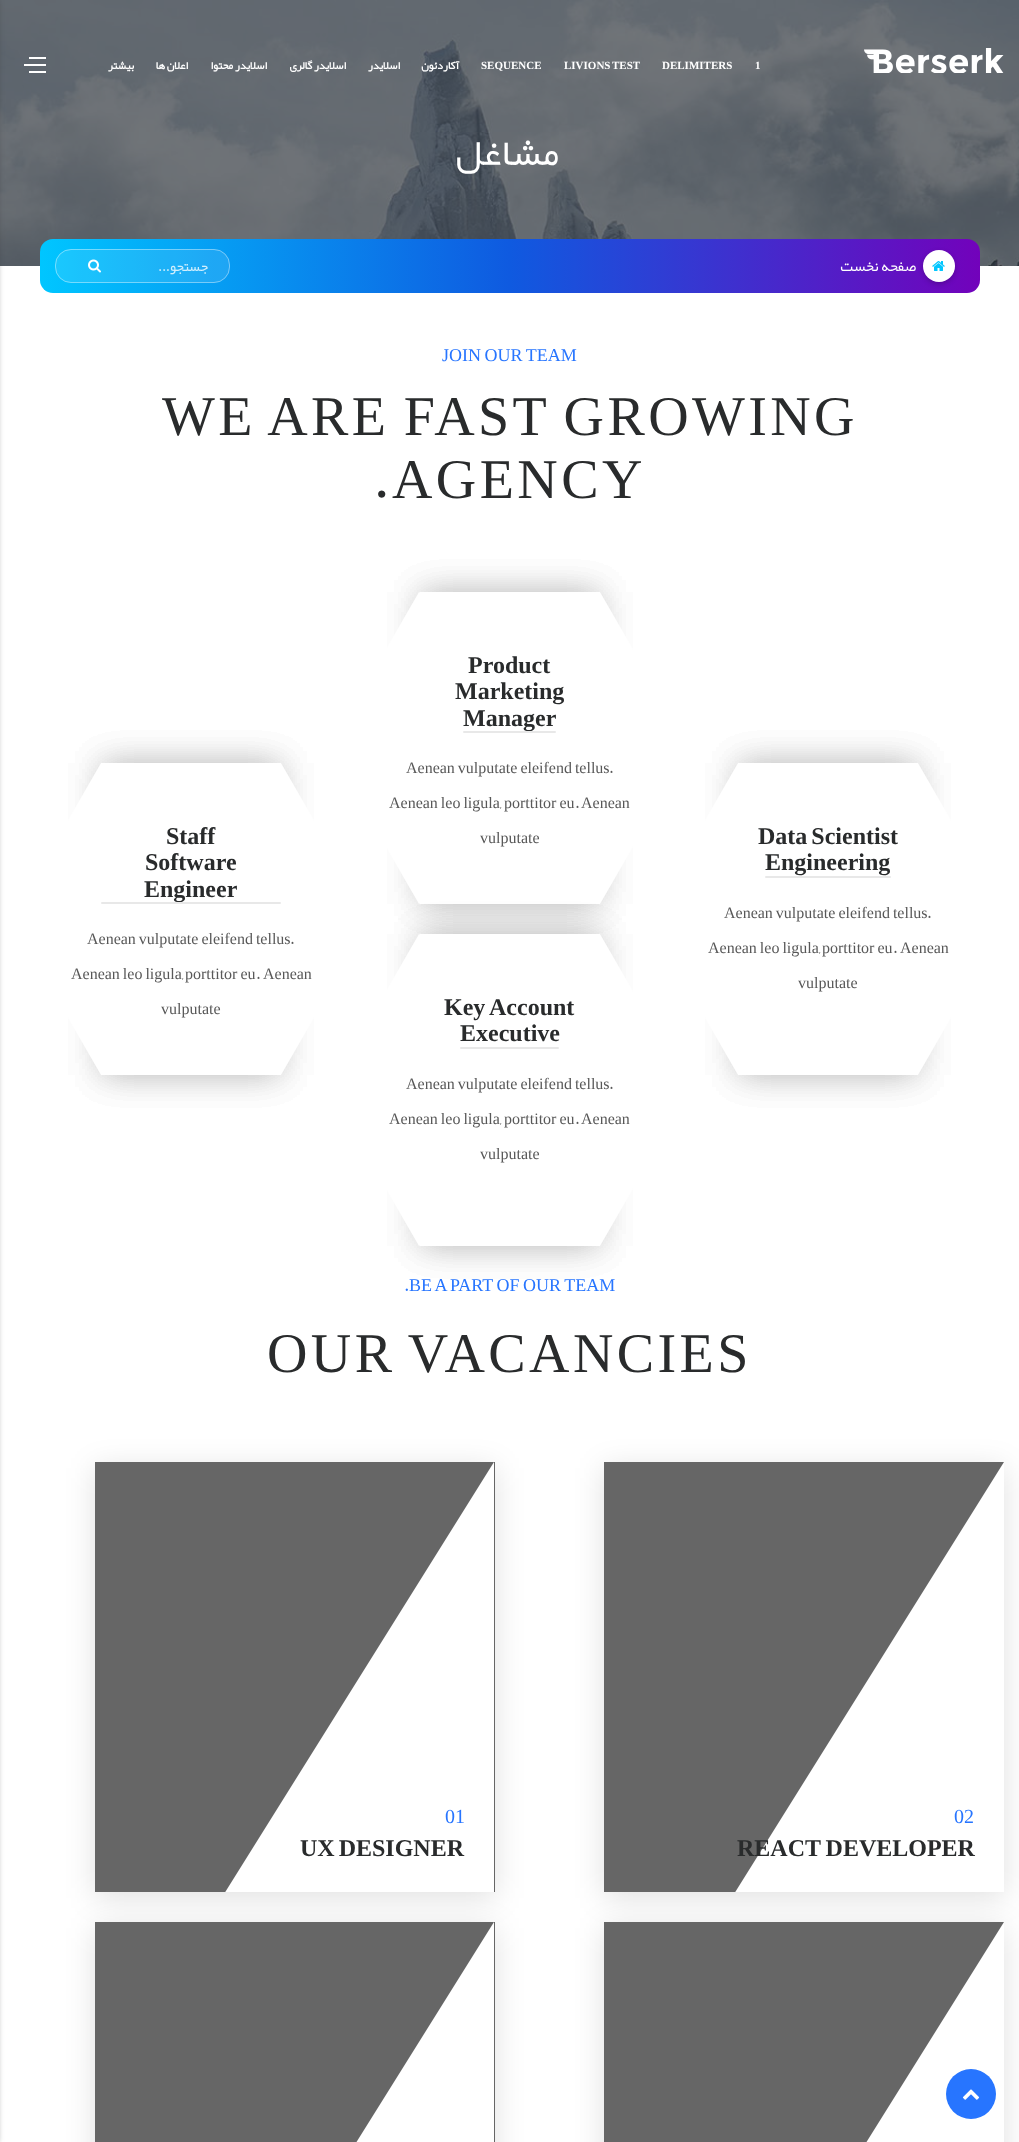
<!DOCTYPE html>
<meta charset="utf-8">
<style>body { margin: 0 } canvas { display: block }</style>
<canvas id="canvas" width="1019" height="2142"></canvas>
<script type="module">
  const canvas = document.getElementById("canvas");
  const ctx = canvas.getContext("2d");
  ctx.miterLimit = 4;
  ctx.fontKerning = "normal";
  async function loadImage(src) {
    const img = new Image();
    img.src = src;
    await img.decode();
    return img;
  }
  let gradient;

  ctx.fillStyle = "#ffffff";
  ctx.fillRect(0, 0, 1019, 2142);
  ctx.drawImage(await loadImage("img2.png"), 0, 0, 1019, 266);
  ctx.fillStyle = "rgba(50, 50, 50, 0.3)";
  ctx.filter = "blur(2.5px)";
  ctx.beginPath();
  ctx.rect(-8, 0, 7, 2142);
  ctx.fill();
  ctx.filter = "none";
  ctx.fillStyle = "#ffffff";
  ctx.fillRect(29, 57, 17, 2);
  ctx.fillRect(24, 64, 22, 2);
  ctx.fillRect(29, 71, 17, 2);
  ctx.direction = "rtl";
  ctx.font = "bold 11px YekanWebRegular";
  ctx.fillText("بیشتر", 134, 69);
  ctx.fillText("اعلان ها", 188, 69);
  ctx.fillText("اسلایدر محتوا", 267, 69);
  ctx.fillText("اسلایدر گالری", 346, 69);
  ctx.fillText("اسلایدر", 400, 69);
  ctx.fillText("آکاردئون", 459, 69);
  ctx.direction = "ltr";
  ctx.font = "bold 11px Liberation Serif";
  ctx.fillText("SEQUENCE", 481, 69);
  ctx.wordSpacing = "-1px";
  ctx.fillText("LIVIONS TEST", 564, 69);
  ctx.wordSpacing = "0px";
  ctx.fillText("DELIMITERS", 662, 69);
  ctx.fillText("1", 755, 69);
  ctx.drawImage(await loadImage("img1.png"), 864, 48, 140, 25);
  ctx.letterSpacing = "-0.5px";
  ctx.direction = "rtl";
  ctx.font = "38px YekanWebRegular";
  ctx.fillText("مشاغل", 559, 165);
  gradient = ctx.createLinearGradient(40, 266, 980, 266);
  gradient.addColorStop(0, "#00c6ff");
  gradient.addColorStop(0.5, "#0f5ae0");
  gradient.addColorStop(1, "#7202bb");
  ctx.fillStyle = gradient;
  ctx.beginPath();
  ctx.roundRect(40, 239, 940, 54, 13);
  ctx.fill();
  ctx.fillStyle = "rgba(255, 255, 255, 0.1)";
  ctx.beginPath();
  ctx.roundRect(55, 249, 175, 34, 16);
  ctx.fill();
  ctx.beginPath();
  ctx.roundRect(55.5, 249.5, 174, 33, 15.5);
  ctx.strokeStyle = "rgba(255, 255, 255, 0.4)";
  ctx.stroke();
  ctx.drawImage(await loadImage("img3.png"), 88, 259, 13, 14);
  ctx.letterSpacing = "0px";
  ctx.font = "14px YekanWebRegular";
  ctx.fillStyle = "#d2effd";
  ctx.fillText("جستجو...", 208, 271);
  ctx.fillStyle = "rgba(0, 0, 0, 0.2)";
  ctx.filter = "blur(2.5px)";
  ctx.beginPath();
  ctx.roundRect(923, 252, 32, 32, 16);
  ctx.fill();
  ctx.filter = "none";
  ctx.font = "15px YekanWebRegular";
  ctx.fillStyle = "#ffffff";
  ctx.fillText("صفحه نخست", 916, 271);
  ctx.beginPath();
  ctx.arc(939, 266, 16, 0, Math.PI * 2);
  ctx.fill();
  ctx.drawImage(await loadImage("img4.png"), 932, 261, 13, 10);
  ctx.wordSpacing = "-1px";
  ctx.direction = "ltr";
  ctx.font = "18px Liberation Serif";
  ctx.fillStyle = "#2775ff";
  ctx.fillText("JOIN OUR TEAM", 442, 361);
  ctx.letterSpacing = "3.4px";
  ctx.wordSpacing = "-3px";
  ctx.font = "56px Liberation Serif";
  ctx.fillStyle = "#292b2c";
  ctx.fillText("WE ARE FAST GROWING", 162, 435);
  ctx.wordSpacing = "0px";
  ctx.font = "56px YekanWebRegular";
  ctx.fillText(".", 373, 498);
  ctx.font = "56px Liberation Serif";
  ctx.fillText("AGENCY", 392, 498);
  ctx.fillStyle = "rgba(0, 0, 0, 0.1)";
  ctx.filter = "blur(17.5px)";
  ctx.beginPath();
  ctx.rect(420, 592, 180, 312);
  ctx.fill();
  ctx.filter = "none";
  ctx.filter = "blur(17.5px)";
  ctx.beginPath();
  ctx.rect(420, 592, 180, 312);
  ctx.fill();
  ctx.filter = "none";
  ctx.filter = "blur(17.5px)";
  ctx.beginPath();
  ctx.rect(420, 592, 180, 312);
  ctx.fill();
  ctx.filter = "none";
  ctx.filter = "blur(17.5px)";
  ctx.beginPath();
  ctx.rect(420, 934, 180, 312);
  ctx.fill();
  ctx.filter = "none";
  ctx.filter = "blur(17.5px)";
  ctx.beginPath();
  ctx.rect(420, 934, 180, 312);
  ctx.fill();
  ctx.filter = "none";
  ctx.fillStyle = "#ffffff";
  ctx.fillRect(420, 592, 180, 312);
  ctx.fillStyle = "rgba(0, 0, 0, 0.1)";
  ctx.filter = "blur(17.5px)";
  ctx.beginPath();
  ctx.rect(101, 763, 180, 312);
  ctx.fill();
  ctx.filter = "none";
  ctx.filter = "blur(17.5px)";
  ctx.beginPath();
  ctx.rect(101, 763, 180, 312);
  ctx.fill();
  ctx.filter = "none";
  ctx.filter = "blur(17.5px)";
  ctx.beginPath();
  ctx.rect(101, 763, 180, 312);
  ctx.fill();
  ctx.filter = "none";
  ctx.filter = "blur(17.5px)";
  ctx.beginPath();
  ctx.rect(738, 763, 180, 312);
  ctx.fill();
  ctx.filter = "none";
  ctx.filter = "blur(17.5px)";
  ctx.beginPath();
  ctx.rect(738, 763, 180, 312);
  ctx.fill();
  ctx.filter = "none";
  ctx.filter = "blur(17.5px)";
  ctx.beginPath();
  ctx.rect(738, 763, 180, 312);
  ctx.fill();
  ctx.filter = "none";
  ctx.filter = "blur(17.5px)";
  ctx.beginPath();
  ctx.rect(420, 934, 180, 312);
  ctx.fill();
  ctx.filter = "none";
  ctx.fillStyle = "#ffffff";
  ctx.beginPath();
  ctx.moveTo(600, 592);
  ctx.lineTo(690, 748);
  ctx.lineTo(419, 904);
  ctx.lineTo(329, 748);
  ctx.closePath();
  ctx.fill();
  ctx.beginPath();
  ctx.moveTo(329, 748);
  ctx.lineTo(419, 592);
  ctx.lineTo(690, 748);
  ctx.lineTo(600, 904);
  ctx.closePath();
  ctx.fill();
  ctx.letterSpacing = "0px";
  ctx.font = "bold 24px Liberation Serif";
  ctx.fillStyle = "#292b2c";
  ctx.fillText("Product", 468, 673);
  ctx.fillText("Marketing", 455, 699);
  ctx.fillText("Manager", 463, 726);
  ctx.fillStyle = "#e8e8e8";
  ctx.beginPath();
  ctx.roundRect(463, 731, 93, 2, 1);
  ctx.fill();
  ctx.wordSpacing = "-1px";
  ctx.font = "16px Liberation Serif";
  ctx.fillStyle = "#585858";
  ctx.fillText("Aenean vulputate eleifend tellus", 406, 773);
  ctx.wordSpacing = "0px";
  ctx.font = "16px YekanWebRegular";
  ctx.fillText(".", 609, 773);
  ctx.wordSpacing = "-1px";
  ctx.font = "16px Liberation Serif";
  ctx.fillText("Aenean leo ligula", 389, 808);
  ctx.fillText("porttitor eu", 504, 808);
  ctx.wordSpacing = "0px";
  ctx.font = "16px YekanWebRegular";
  ctx.fillText(".", 575, 808);
  ctx.font = "16px Liberation Serif";
  ctx.fillText("Aenean", 581, 808);
  ctx.font = "16px YekanWebRegular";
  ctx.fillText(",", 500, 808);
  ctx.font = "16px Liberation Serif";
  ctx.fillText("vulputate", 480, 843);
  ctx.fillStyle = "#ffffff";
  ctx.fillRect(101, 763, 180, 312);
  ctx.fillRect(420, 934, 180, 312);
  ctx.beginPath();
  ctx.moveTo(600, 934);
  ctx.lineTo(690, 1090);
  ctx.lineTo(419, 1246);
  ctx.lineTo(329, 1090);
  ctx.closePath();
  ctx.fill();
  ctx.beginPath();
  ctx.moveTo(329, 1090);
  ctx.lineTo(419, 934);
  ctx.lineTo(690, 1090);
  ctx.lineTo(600, 1246);
  ctx.closePath();
  ctx.fill();
  ctx.beginPath();
  ctx.moveTo(281, 763);
  ctx.lineTo(371, 919);
  ctx.lineTo(101, 1075);
  ctx.lineTo(11, 919);
  ctx.closePath();
  ctx.fill();
  ctx.beginPath();
  ctx.moveTo(11, 919);
  ctx.lineTo(101, 763);
  ctx.lineTo(371, 919);
  ctx.lineTo(281, 1075);
  ctx.closePath();
  ctx.fill();
  ctx.font = "bold 24px Liberation Serif";
  ctx.fillStyle = "#292b2c";
  ctx.fillText("Staff", 166, 844);
  ctx.fillText("Software", 145, 870);
  ctx.fillText("Engineer", 144, 897);
  ctx.fillStyle = "#e8e8e8";
  ctx.beginPath();
  ctx.roundRect(101, 902, 180, 2, 1);
  ctx.fill();
  ctx.wordSpacing = "-1px";
  ctx.font = "16px Liberation Serif";
  ctx.fillStyle = "#585858";
  ctx.fillText("Aenean vulputate eleifend tellus", 87, 944);
  ctx.wordSpacing = "0px";
  ctx.font = "16px YekanWebRegular";
  ctx.fillText(".", 290, 944);
  ctx.wordSpacing = "-1px";
  ctx.font = "16px Liberation Serif";
  ctx.fillText("Aenean leo ligula", 71, 979);
  ctx.wordSpacing = "0px";
  ctx.font = "16px YekanWebRegular";
  ctx.fillText(",", 182, 979);
  ctx.wordSpacing = "-1px";
  ctx.font = "16px Liberation Serif";
  ctx.fillText("porttitor eu", 185, 979);
  ctx.wordSpacing = "0px";
  ctx.font = "16px YekanWebRegular";
  ctx.fillText(".", 256, 979);
  ctx.font = "16px Liberation Serif";
  ctx.fillText("Aenean", 263, 979);
  ctx.fillText("vulputate", 161, 1014);
  ctx.fillStyle = "#ffffff";
  ctx.fillRect(738, 763, 180, 312);
  ctx.beginPath();
  ctx.moveTo(918, 763);
  ctx.lineTo(1008, 919);
  ctx.lineTo(738, 1075);
  ctx.lineTo(648, 919);
  ctx.closePath();
  ctx.fill();
  ctx.beginPath();
  ctx.moveTo(648, 919);
  ctx.lineTo(738, 763);
  ctx.lineTo(1008, 919);
  ctx.lineTo(918, 1075);
  ctx.closePath();
  ctx.fill();
  ctx.wordSpacing = "-2px";
  ctx.font = "bold 24px Liberation Serif";
  ctx.fillStyle = "#292b2c";
  ctx.fillText("Data Scientist", 758, 844);
  ctx.wordSpacing = "0px";
  ctx.fillText("Engineering", 765, 870);
  ctx.fillStyle = "#e8e8e8";
  ctx.beginPath();
  ctx.roundRect(765, 876, 126, 2, 1);
  ctx.fill();
  ctx.wordSpacing = "-1px";
  ctx.font = "16px Liberation Serif";
  ctx.fillStyle = "#585858";
  ctx.fillText("Aenean vulputate eleifend tellus", 724, 918);
  ctx.wordSpacing = "0px";
  ctx.font = "16px YekanWebRegular";
  ctx.fillText(".", 927, 918);
  ctx.wordSpacing = "-1px";
  ctx.font = "16px Liberation Serif";
  ctx.fillText("Aenean leo ligula", 708, 953);
  ctx.wordSpacing = "0px";
  ctx.font = "16px YekanWebRegular";
  ctx.fillText(",", 819, 953);
  ctx.wordSpacing = "-1px";
  ctx.font = "16px Liberation Serif";
  ctx.fillText("porttitor eu", 822, 953);
  ctx.wordSpacing = "0px";
  ctx.font = "16px YekanWebRegular";
  ctx.fillText(".", 893, 953);
  ctx.font = "16px Liberation Serif";
  ctx.fillText("Aenean", 900, 953);
  ctx.fillText("vulputate", 798, 988);
  ctx.wordSpacing = "-1px";
  ctx.font = "bold 24px Liberation Serif";
  ctx.fillStyle = "#292b2c";
  ctx.fillText("Key Account", 444, 1015);
  ctx.wordSpacing = "0px";
  ctx.fillText("Executive", 460, 1041);
  ctx.fillStyle = "#e8e8e8";
  ctx.beginPath();
  ctx.roundRect(460, 1047, 99, 2, 1);
  ctx.fill();
  ctx.wordSpacing = "-1px";
  ctx.font = "16px Liberation Serif";
  ctx.fillStyle = "#585858";
  ctx.fillText("Aenean vulputate eleifend tellus", 406, 1089);
  ctx.wordSpacing = "0px";
  ctx.font = "16px YekanWebRegular";
  ctx.fillText(".", 609, 1089);
  ctx.wordSpacing = "-1px";
  ctx.font = "16px Liberation Serif";
  ctx.fillText("Aenean leo ligula", 389, 1124);
  ctx.fillText("porttitor eu", 504, 1124);
  ctx.wordSpacing = "0px";
  ctx.font = "16px YekanWebRegular";
  ctx.fillText(".", 575, 1124);
  ctx.font = "16px Liberation Serif";
  ctx.fillText("Aenean", 581, 1124);
  ctx.font = "16px YekanWebRegular";
  ctx.fillText(",", 500, 1124);
  ctx.font = "16px Liberation Serif";
  ctx.fillText("vulputate", 480, 1159);
  ctx.font = "18px YekanWebRegular";
  ctx.fillStyle = "#2775ff";
  ctx.fillText(".", 404, 1291);
  ctx.wordSpacing = "-1px";
  ctx.font = "18px Liberation Serif";
  ctx.fillText("BE A PART OF OUR TEAM", 409, 1291);
  ctx.letterSpacing = "3.4px";
  ctx.wordSpacing = "-4px";
  ctx.font = "56px Liberation Serif";
  ctx.fillStyle = "#292b2c";
  ctx.fillText("OUR VACANCIES", 267, 1372);
  ctx.fillStyle = "rgba(0, 0, 0, 0.12)";
  ctx.filter = "blur(15px)";
  ctx.beginPath();
  ctx.rect(95, 1468, 400, 430);
  ctx.fill();
  ctx.filter = "none";
  ctx.fillStyle = "#666666";
  ctx.fillRect(95, 1462, 400, 430);
  ctx.save();
  ctx.beginPath();
  ctx.rect(95, 1462, 400, 430);
  ctx.clip();
  ctx.fillStyle = "#ffffff";
  ctx.beginPath();
  ctx.moveTo(94, 2102);
  ctx.lineTo(494, 1462);
  ctx.lineTo(494, 1892);
  ctx.lineTo(94, 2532);
  ctx.closePath();
  ctx.fill();
  ctx.restore();
  ctx.letterSpacing = "0px";
  ctx.wordSpacing = "0px";
  ctx.font = "20px Liberation Serif";
  ctx.fillStyle = "#2775ff";
  ctx.fillText("01", 445, 1823);
  ctx.wordSpacing = "-2px";
  ctx.font = "bold 24px Liberation Serif";
  ctx.fillStyle = "#292b2c";
  ctx.fillText("UX DESIGNER", 300, 1856);
  ctx.fillStyle = "rgba(0, 0, 0, 0.12)";
  ctx.filter = "blur(15px)";
  ctx.beginPath();
  ctx.rect(604, 1468, 400, 430);
  ctx.fill();
  ctx.filter = "none";
  ctx.fillStyle = "#666666";
  ctx.fillRect(604, 1462, 400, 430);
  ctx.save();
  ctx.beginPath();
  ctx.rect(604, 1462, 400, 430);
  ctx.clip();
  ctx.fillStyle = "#ffffff";
  ctx.beginPath();
  ctx.moveTo(604, 2102);
  ctx.lineTo(1004, 1462);
  ctx.lineTo(1004, 1892);
  ctx.lineTo(604, 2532);
  ctx.closePath();
  ctx.fill();
  ctx.restore();
  ctx.wordSpacing = "0px";
  ctx.font = "20px Liberation Serif";
  ctx.fillStyle = "#2775ff";
  ctx.fillText("02", 954, 1823);
  ctx.wordSpacing = "-1px";
  ctx.font = "bold 24px Liberation Serif";
  ctx.fillStyle = "#292b2c";
  ctx.fillText("REACT DEVELOPER", 737, 1856);
  ctx.fillStyle = "rgba(0, 0, 0, 0.12)";
  ctx.filter = "blur(15px)";
  ctx.beginPath();
  ctx.rect(95, 1928, 400, 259);
  ctx.fill();
  ctx.filter = "none";
  ctx.fillStyle = "#666666";
  ctx.fillRect(95, 1922, 400, 220);
  ctx.fillStyle = "#ffffff";
  ctx.beginPath();
  ctx.moveTo(94, 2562);
  ctx.lineTo(494, 1922);
  ctx.lineTo(494, 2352);
  ctx.lineTo(94, 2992);
  ctx.closePath();
  ctx.fill();
  ctx.fillStyle = "rgba(0, 0, 0, 0.12)";
  ctx.filter = "blur(15px)";
  ctx.beginPath();
  ctx.rect(604, 1928, 400, 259);
  ctx.fill();
  ctx.filter = "none";
  ctx.fillStyle = "#666666";
  ctx.fillRect(604, 1922, 400, 220);
  ctx.fillStyle = "#ffffff";
  ctx.beginPath();
  ctx.moveTo(604, 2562);
  ctx.lineTo(1004, 1922);
  ctx.lineTo(1004, 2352);
  ctx.lineTo(604, 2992);
  ctx.closePath();
  ctx.fill();
  ctx.fillStyle = "#2775ff";
  ctx.beginPath();
  ctx.arc(971, 2094, 25, 0, Math.PI * 2);
  ctx.fill();
  ctx.drawImage(await loadImage("img5.png"), 962, 2089, 18, 11);
</script>
